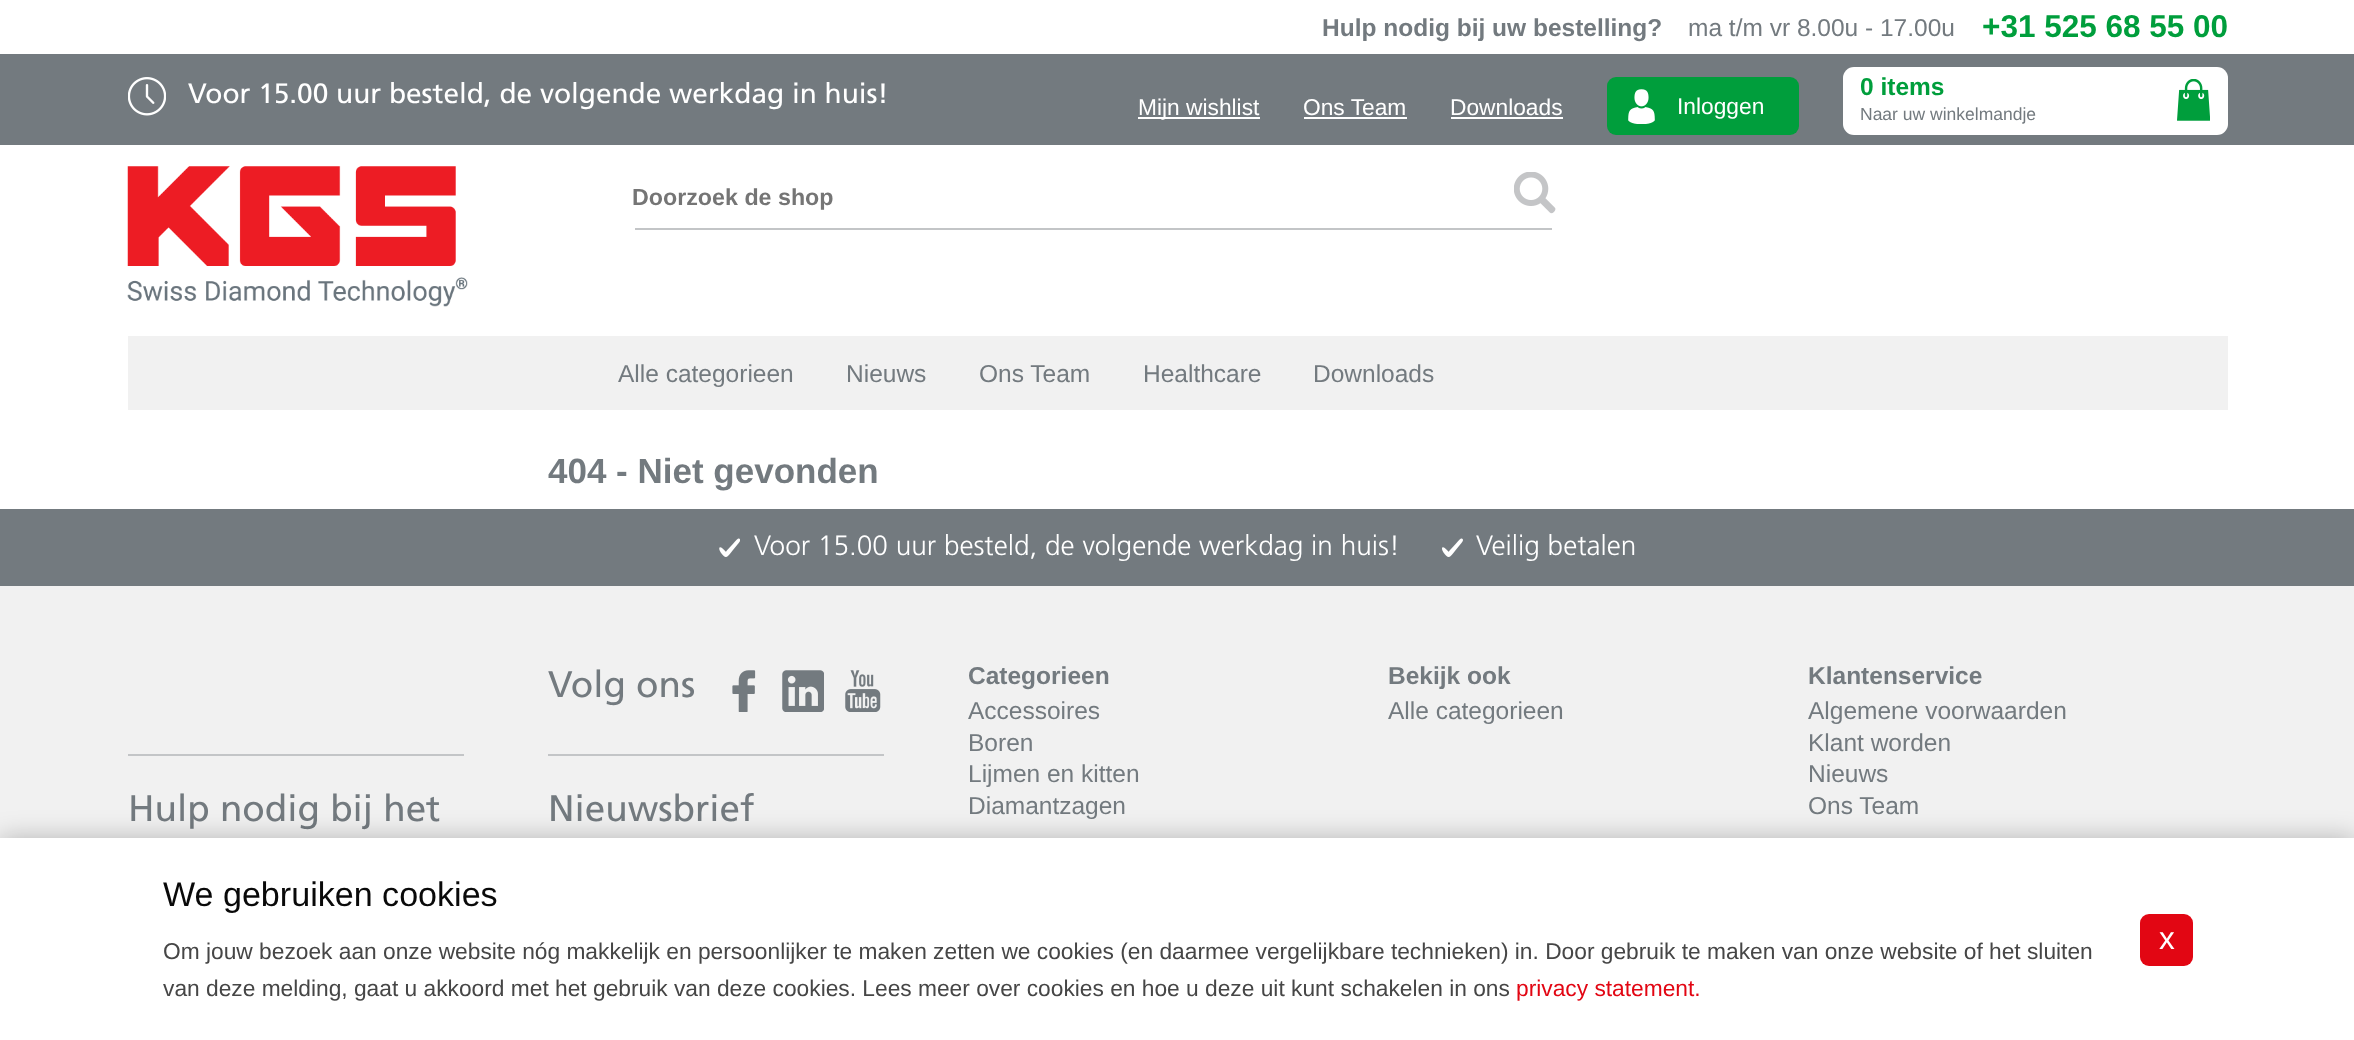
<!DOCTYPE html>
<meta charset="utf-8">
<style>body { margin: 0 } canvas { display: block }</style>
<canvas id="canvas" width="2354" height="1040"></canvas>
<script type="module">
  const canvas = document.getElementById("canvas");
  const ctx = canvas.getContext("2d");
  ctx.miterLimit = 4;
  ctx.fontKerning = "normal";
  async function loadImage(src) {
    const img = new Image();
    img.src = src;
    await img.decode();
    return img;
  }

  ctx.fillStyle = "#ffffff";
  ctx.fillRect(0, 0, 2354, 1040);
  ctx.fillStyle = "#737a7f";
  ctx.fillRect(0, 54, 2354, 91);
  ctx.font = "bold 24.5px Liberation Sans";
  ctx.fillText("Hulp nodig bij uw bestelling?", 1322, 36);
  ctx.font = "24.5px Liberation Sans";
  ctx.fillText("ma t/m vr 8.00u - 17.00u", 1688, 36);
  ctx.font = "bold 31.5px Liberation Sans";
  ctx.fillStyle = "#009e3c";
  ctx.fillText("+31 525 68 55 00", 1982, 37);
  ctx.drawImage(await loadImage("img1.png"), 128, 77, 38, 39);
  ctx.font = "28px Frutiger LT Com";
  ctx.fillStyle = "#ffffff";
  ctx.fillText("Voor 15.00 uur besteld, de volgende werkdag in huis!", 188, 103);
  ctx.fillRect(1138, 117, 122, 2);
  ctx.font = "22.75px Liberation Sans";
  ctx.fillText("Mijn wishlist", 1138, 115);
  ctx.fillText("Ons Team", 1303, 115);
  ctx.fillRect(1304, 117, 103, 2);
  ctx.fillText("Downloads", 1450, 115);
  ctx.fillRect(1451, 117, 112, 2);
  ctx.fillStyle = "#009e3c";
  ctx.beginPath();
  ctx.roundRect(1607, 77, 192, 58, 9);
  ctx.fill();
  ctx.drawImage(await loadImage("img2.png"), 1628, 89, 27, 35);
  ctx.fillStyle = "#ffffff";
  ctx.fillText("Inloggen", 1677, 114);
  ctx.beginPath();
  ctx.roundRect(1843, 67, 385, 68, 11);
  ctx.fill();
  ctx.font = "bold 24.5px Liberation Sans";
  ctx.fillStyle = "#009e3c";
  ctx.fillText("0 items", 1860, 95);
  ctx.font = "17.5px Liberation Sans";
  ctx.fillStyle = "#737a7f";
  ctx.fillText("Naar uw winkelmandje", 1860, 120);
  ctx.drawImage(await loadImage("img3.png"), 2177, 79, 33, 42);
  ctx.drawImage(await loadImage("img4.png"), 127, 166, 341, 141);
  ctx.fillStyle = "#c3c5c7";
  ctx.fillRect(635, 228, 917, 2);
  ctx.font = "bold 23.25px Liberation Sans";
  ctx.fillStyle = "#757575";
  ctx.fillText("Doorzoek de shop", 632, 205);
  ctx.drawImage(await loadImage("img5.png"), 1514, 172, 42, 42);
  ctx.fillStyle = "#f1f1f1";
  ctx.fillRect(128, 336, 2100, 74);
  ctx.font = "24.5px Liberation Sans";
  ctx.fillStyle = "#737a7f";
  ctx.fillText("Alle categorieen", 618, 382);
  ctx.fillText("Nieuws", 846, 382);
  ctx.fillText("Ons Team", 979, 382);
  ctx.fillText("Healthcare", 1143, 382);
  ctx.fillText("Downloads", 1313, 382);
  ctx.font = "bold 35px Liberation Sans";
  ctx.fillText("404 - Niet gevonden", 548, 483);
  ctx.fillRect(0, 509, 2354, 77);
  ctx.drawImage(await loadImage("img6.png"), 719, 538, 21, 19);
  ctx.font = "300 28px Frutiger LT Com";
  ctx.fillStyle = "#ffffff";
  ctx.fillText("Voor 15.00 uur besteld, de volgende werkdag in huis!", 754, 555);
  ctx.drawImage(await loadImage("img7.png"), 1442, 538, 21, 19);
  ctx.fillText("Veilig betalen", 1476, 555);
  ctx.fillStyle = "#f1f1f1";
  ctx.fillRect(0, 586, 2354, 252);
  ctx.fillStyle = "#c3c5c7";
  ctx.fillRect(128, 754, 336, 2);
  ctx.font = "36.75px Frutiger LT Com";
  ctx.fillStyle = "#737a7f";
  ctx.fillText("Hulp nodig bij het", 128, 821);
  ctx.fillText("Volg ons", 548, 697);
  ctx.drawImage(await loadImage("img8.png"), 732, 670, 24, 42);
  ctx.drawImage(await loadImage("img9.png"), 782, 670, 42, 42);
  ctx.drawImage(await loadImage("img10.png"), 845, 670, 36, 42);
  ctx.fillStyle = "#c3c5c7";
  ctx.fillRect(548, 754, 336, 2);
  ctx.fillStyle = "#737a7f";
  ctx.fillText("Nieuwsbrief", 548, 821);
  ctx.font = "bold 24.5px Liberation Sans";
  ctx.fillText("Categorieen", 968, 684);
  ctx.font = "24.5px Liberation Sans";
  ctx.fillText("Accessoires", 968, 719);
  ctx.fillText("Boren", 968, 751);
  ctx.fillText("Lijmen en kitten", 968, 782);
  ctx.fillText("Diamantzagen", 968, 814);
  ctx.font = "bold 24.5px Liberation Sans";
  ctx.fillText("Bekijk ook", 1388, 684);
  ctx.font = "24.5px Liberation Sans";
  ctx.fillText("Alle categorieen", 1388, 719);
  ctx.font = "bold 24.5px Liberation Sans";
  ctx.fillText("Klantenservice", 1808, 684);
  ctx.font = "24.5px Liberation Sans";
  ctx.fillText("Algemene voorwaarden", 1808, 719);
  ctx.fillText("Klant worden", 1808, 751);
  ctx.fillText("Nieuws", 1808, 782);
  ctx.fillText("Ons Team", 1808, 814);
  ctx.fillStyle = "rgba(0, 0, 0, 0.25)";
  ctx.filter = "blur(13px)";
  ctx.beginPath();
  ctx.rect(0, 838, 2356, 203);
  ctx.fill();
  ctx.filter = "none";
  ctx.fillStyle = "#ffffff";
  ctx.fillRect(0, 838, 2354, 202);
  ctx.font = "34.1px Liberation Sans";
  ctx.fillStyle = "#090909";
  ctx.fillText("We gebruiken cookies", 163, 906);
  ctx.font = "22.75px Liberation Sans";
  ctx.fillStyle = "#464646";
  ctx.fillText("Om jouw bezoek aan onze website nóg makkelijk en persoonlijker te maken zetten we cookies (en daarmee vergelijkbare technieken) in. Door gebruik te maken van onze website of het sluiten", 163, 959);
  ctx.fillText("van deze melding, gaat u akkoord met het gebruik van deze cookies. Lees meer over cookies en hoe u deze uit kunt schakelen in ons", 163, 996);
  ctx.fillStyle = "#e20613";
  ctx.fillText("privacy statement.", 1516, 996);
  ctx.beginPath();
  ctx.roundRect(2140, 914, 53, 52, 9);
  ctx.fill();
  ctx.font = "31.5px Liberation Sans";
  ctx.fillStyle = "#ffffff";
  ctx.fillText("x", 2159, 949);
</script>
